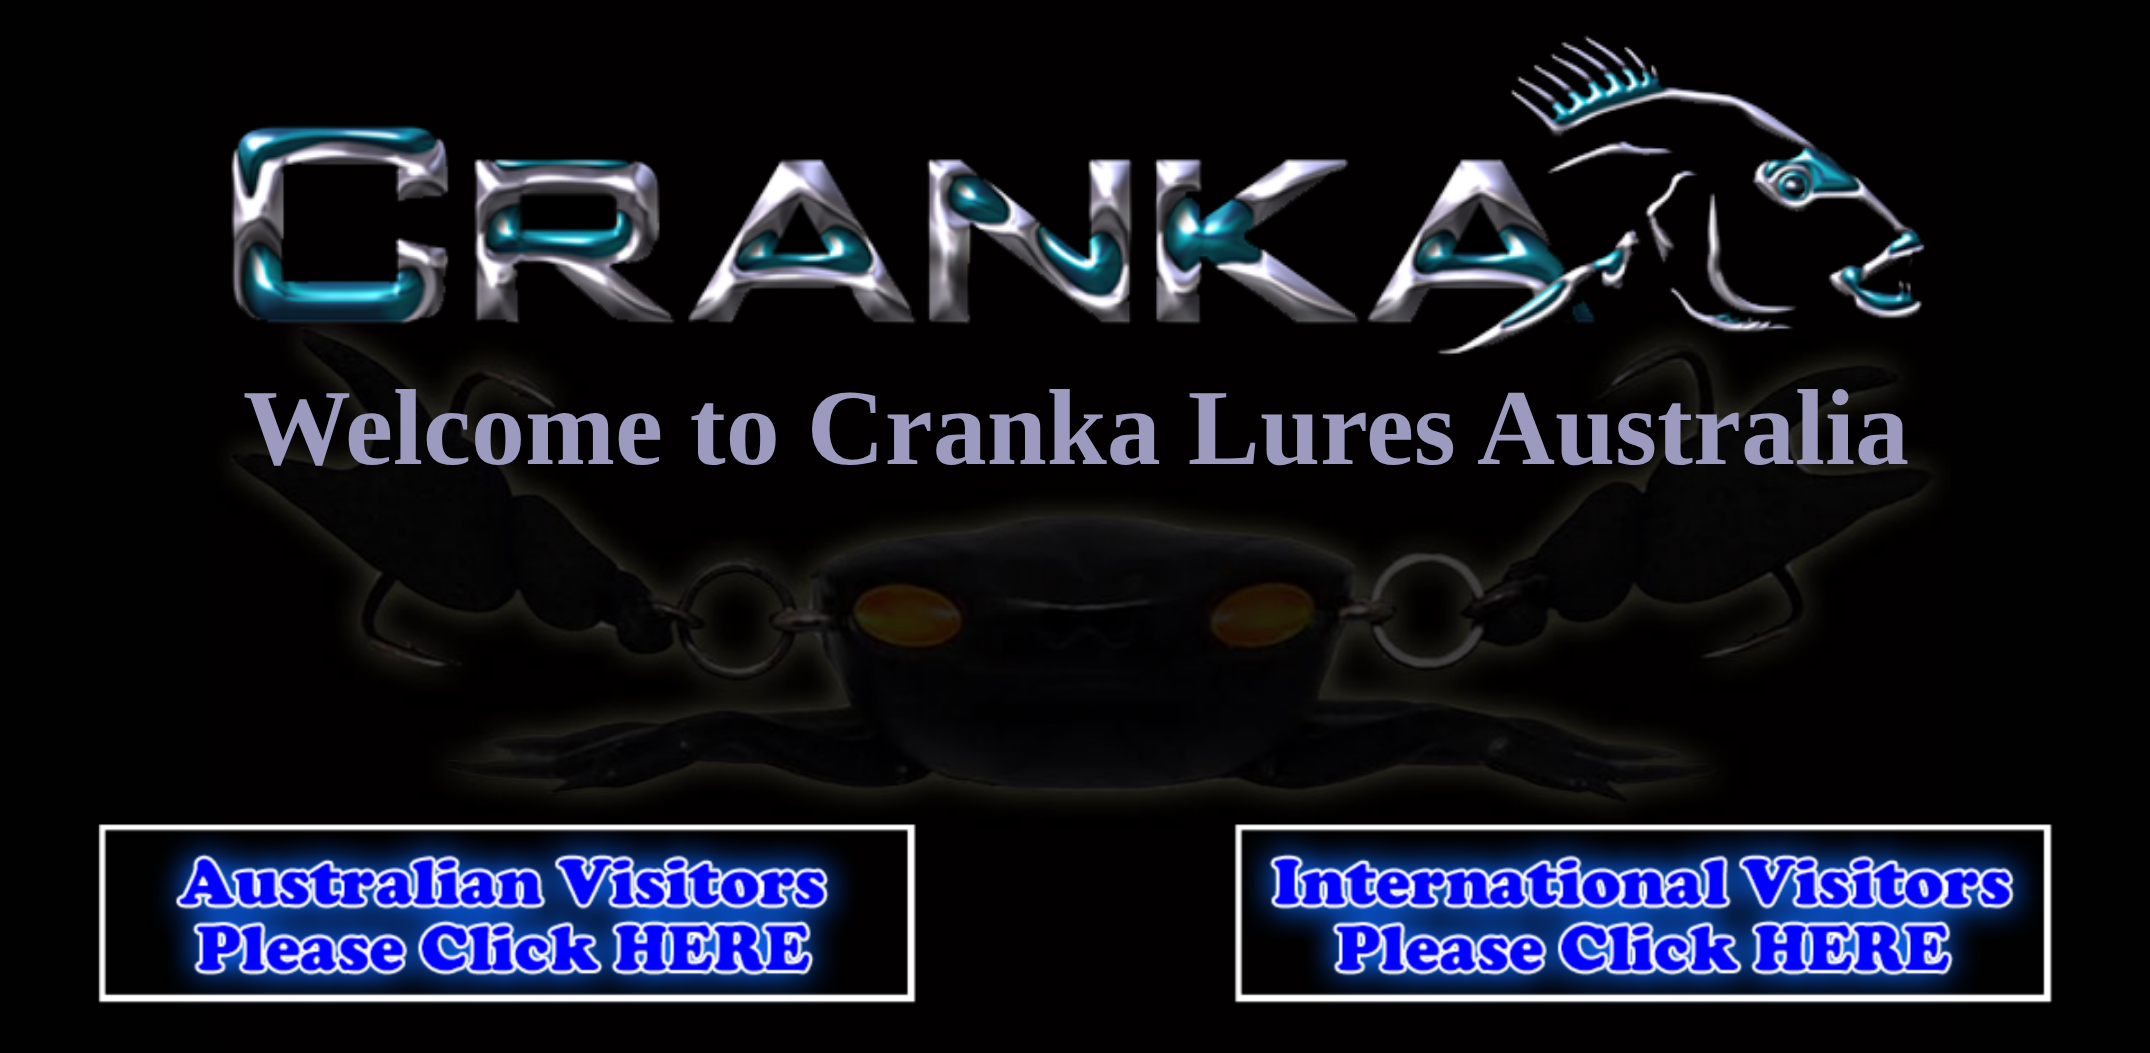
<!DOCTYPE html>
<meta charset="utf-8">
<style>body { margin: 0 } canvas { display: block }</style>
<canvas id="canvas" width="2150" height="1053"></canvas>
<script type="module">
  const canvas = document.getElementById("canvas");
  const ctx = canvas.getContext("2d");
  ctx.miterLimit = 4;
  ctx.fontKerning = "normal";
  async function loadImage(src) {
    const img = new Image();
    img.src = src;
    await img.decode();
    return img;
  }

  ctx.fillStyle = "#010101";
  ctx.fillRect(0, 0, 2150, 1053);
  ctx.drawImage(await loadImage("img1.png"), 217, 0, 1734, 1053);
  ctx.drawImage(await loadImage("img2.png"), 231, 35, 1694, 321);
  ctx.font = "bold 108px Liberation Serif";
  ctx.fillStyle = "#9c9abf";
  ctx.fillText("Welcome to Cranka Lures Australia", 243, 464);
  ctx.drawImage(await loadImage("img3.png"), 98, 824, 818, 181);
  ctx.drawImage(await loadImage("img4.png"), 1234, 824, 819, 181);
</script>
